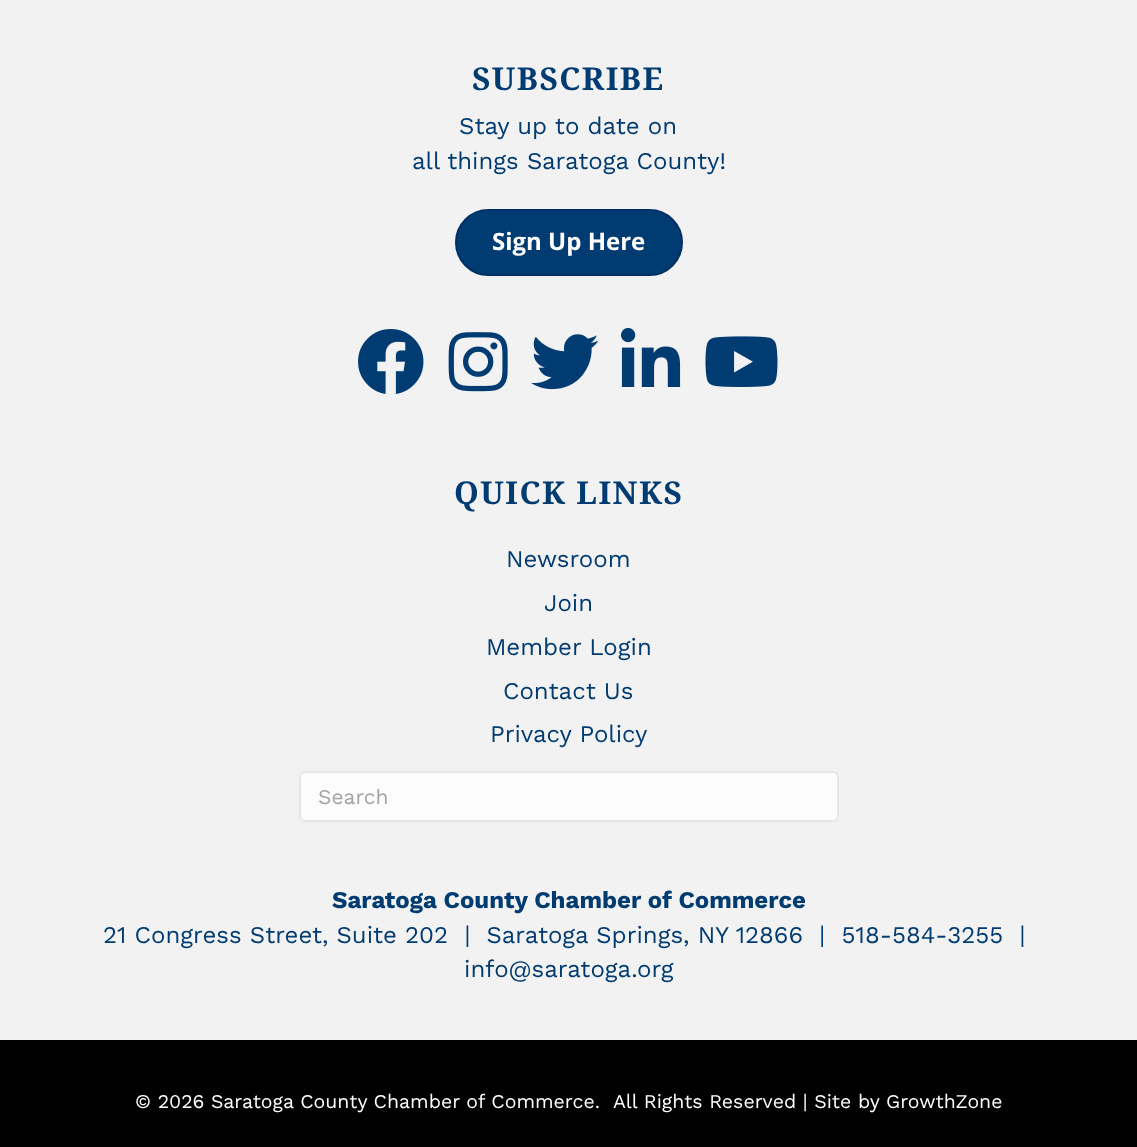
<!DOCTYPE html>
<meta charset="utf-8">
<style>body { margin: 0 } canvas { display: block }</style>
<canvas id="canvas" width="1137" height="1147"></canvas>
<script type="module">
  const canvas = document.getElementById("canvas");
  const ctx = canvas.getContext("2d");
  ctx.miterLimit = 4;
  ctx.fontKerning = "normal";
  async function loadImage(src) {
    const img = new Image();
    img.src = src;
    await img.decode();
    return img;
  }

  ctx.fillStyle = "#f2f2f2";
  ctx.fillRect(0, 0, 1137, 1147);
  ctx.letterSpacing = "1.5px";
  ctx.font = "bold 31.5px Noto Serif";
  ctx.fillStyle = "#003b71";
  ctx.fillText("SUBSCRIBE", 472, 90);
  ctx.letterSpacing = "0px";
  ctx.font = "24px Work Sans";
  ctx.fillText("Stay up to date on", 459, 134);
  ctx.fillText("all things Saratoga County!", 412, 169);
  ctx.beginPath();
  ctx.roundRect(456, 210, 226, 65, 32.5);
  ctx.fill();
  ctx.strokeStyle = "#002f65";
  ctx.lineWidth = 2;
  ctx.stroke();
  ctx.font = "bold 24px Open Sans";
  ctx.fillStyle = "#ffffff";
  ctx.fillText("Sign Up Here", 492, 250);
  ctx.drawImage(await loadImage("img1.png"), 358, 329, 66, 65);
  ctx.drawImage(await loadImage("img2.png"), 448, 332, 60, 60);
  ctx.drawImage(await loadImage("img3.png"), 531, 334, 68, 56);
  ctx.drawImage(await loadImage("img4.png"), 621, 327, 60, 60);
  ctx.drawImage(await loadImage("img5.png"), 705, 336, 73, 51);
  ctx.letterSpacing = "1.5px";
  ctx.font = "bold 31.5px Noto Serif";
  ctx.fillStyle = "#003b71";
  ctx.fillText("QUICK LINKS", 454, 504);
  ctx.letterSpacing = "0px";
  ctx.font = "24px Work Sans";
  ctx.fillText("Newsroom", 506, 567);
  ctx.fillText("Join", 544, 611);
  ctx.fillText("Member Login", 486, 655);
  ctx.fillText("Contact Us", 503, 699);
  ctx.fillText("Privacy Policy", 490, 742);
  ctx.fillStyle = "#fcfcfc";
  ctx.beginPath();
  ctx.roundRect(300, 772, 538, 49, 5);
  ctx.fill();
  ctx.strokeStyle = "#e6e6e6";
  ctx.stroke();
  ctx.font = "21px Work Sans";
  ctx.fillStyle = "#a3a3a8";
  ctx.fillText("Search", 318, 804);
  ctx.font = "bold 24px Work Sans";
  ctx.fillStyle = "#003b71";
  ctx.fillText("Saratoga County Chamber of Commerce", 332, 908);
  ctx.font = "24px Work Sans";
  ctx.fillText("21 Congress Street, Suite 202  |  Saratoga Springs, NY 12866  |  518-584-3255  |", 103, 943);
  ctx.fillText("info@saratoga.org", 464, 977);
  ctx.fillStyle = "#000000";
  ctx.fillRect(0, 1040, 1137, 107);
  ctx.font = "19.5px Work Sans";
  ctx.fillStyle = "#ffffff";
  ctx.fillText("© 2026 Saratoga County Chamber of Commerce.", 135, 1108);
  ctx.fillText("All Rights Reserved | Site by GrowthZone", 613, 1108);
</script>
